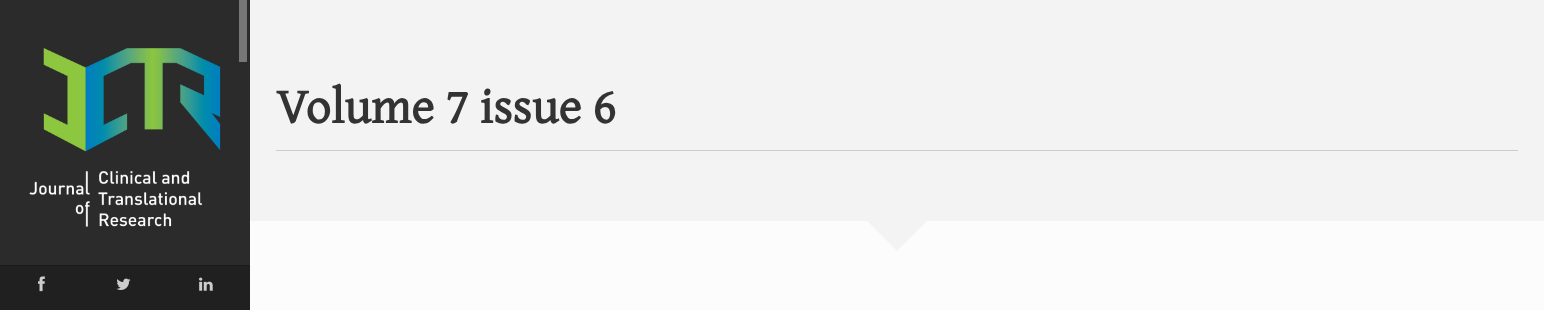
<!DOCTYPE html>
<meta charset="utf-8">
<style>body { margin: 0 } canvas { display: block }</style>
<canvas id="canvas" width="1544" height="310"></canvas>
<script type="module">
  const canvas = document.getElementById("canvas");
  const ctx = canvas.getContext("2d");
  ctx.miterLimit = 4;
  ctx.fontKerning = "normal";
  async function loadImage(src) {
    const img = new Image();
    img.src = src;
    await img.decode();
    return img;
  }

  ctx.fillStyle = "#2b2b2b";
  ctx.fillRect(0, 0, 1544, 310);
  ctx.fillStyle = "#777777";
  ctx.fillRect(239, 0, 8, 62);
  ctx.drawImage(await loadImage("img1.png"), 29, 48, 192, 179);
  ctx.fillStyle = "#202020";
  ctx.fillRect(0, 266, 250, 44);
  ctx.fillStyle = "#1a1a1a";
  ctx.fillRect(0, 265, 250, 1);
  ctx.drawImage(await loadImage("img2.png"), 38, 276, 7, 16);
  ctx.drawImage(await loadImage("img3.png"), 116, 278, 15, 12);
  ctx.drawImage(await loadImage("img4.png"), 199, 277, 14, 14);
  ctx.fillStyle = "#f3f3f3";
  ctx.fillRect(250, 0, 1294, 221);
  ctx.fillStyle = "#cccccc";
  ctx.fillRect(276, 150, 1242, 1);
  ctx.font = "bold 50px Gentium Plus";
  ctx.fillStyle = "#333333";
  ctx.fillText("Volume 7 issue 6", 276, 123);
  ctx.fillStyle = "#fcfcfc";
  ctx.fillRect(250, 221, 1294, 89);
  ctx.fillStyle = "#f3f3f3";
  ctx.beginPath();
  ctx.moveTo(867, 221);
  ctx.lineTo(927, 221);
  ctx.lineTo(897, 251);
  ctx.closePath();
  ctx.fill();
</script>
